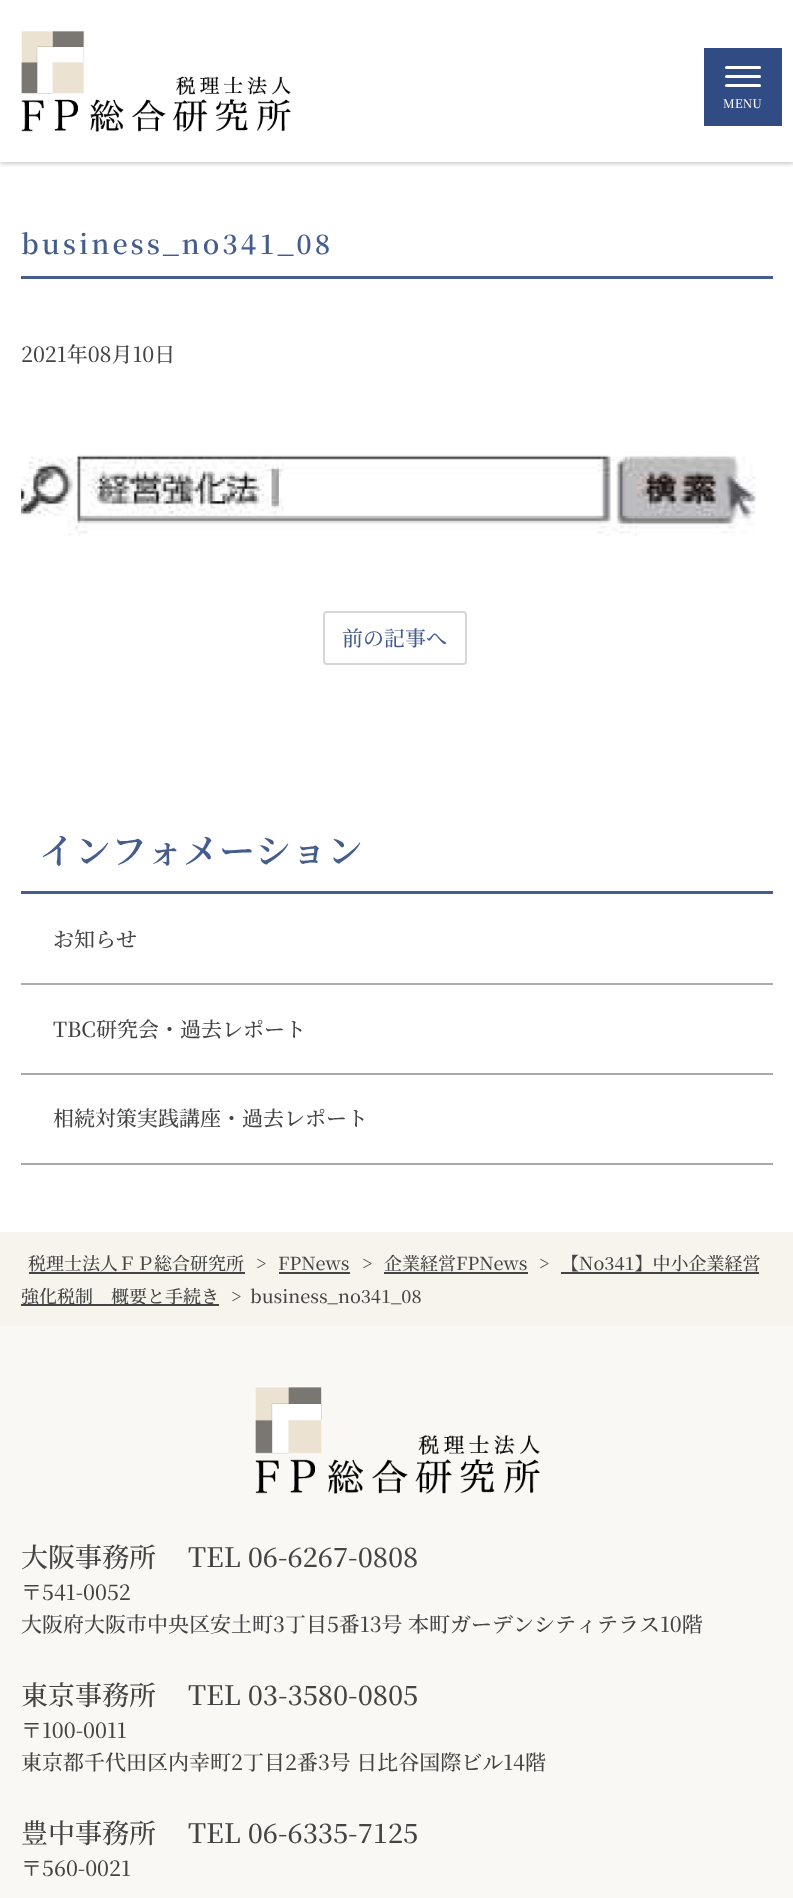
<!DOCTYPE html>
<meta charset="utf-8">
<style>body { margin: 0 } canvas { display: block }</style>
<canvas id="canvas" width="793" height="1898"></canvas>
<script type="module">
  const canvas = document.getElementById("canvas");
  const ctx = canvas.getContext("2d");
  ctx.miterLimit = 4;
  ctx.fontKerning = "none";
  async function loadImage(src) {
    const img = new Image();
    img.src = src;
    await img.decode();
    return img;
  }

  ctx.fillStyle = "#ffffff";
  ctx.fillRect(0, 0, 793, 1898);
  ctx.save();
  ctx.beginPath();
  ctx.rect(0, 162, 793, 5);
  ctx.clip();
  ctx.fillStyle = "rgba(0, 0, 0, 0.2)";
  ctx.filter = "blur(2px)";
  ctx.beginPath();
  ctx.rect(0, 2, 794, 162);
  ctx.fill();
  ctx.filter = "none";
  ctx.restore();
  ctx.drawImage(await loadImage("img1.png"), 21, 30, 270, 102);
  ctx.fillStyle = "#314c84";
  ctx.fillRect(704, 48, 78, 78);
  ctx.fillStyle = "#ffffff";
  ctx.beginPath();
  ctx.roundRect(725, 66, 36, 3, 1.5);
  ctx.fill();
  ctx.beginPath();
  ctx.roundRect(725, 75, 36, 3, 1.5);
  ctx.fill();
  ctx.beginPath();
  ctx.roundRect(725, 84, 36, 3, 1.5);
  ctx.fill();
  ctx.font = "500 12px Noto Serif JP";
  ctx.fillText("MENU", 723, 108);
  ctx.fillStyle = "#455d8d";
  ctx.fillRect(21, 276, 752, 3);
  ctx.letterSpacing = "3px";
  ctx.font = "600 27px Noto Serif JP";
  ctx.fillText("business_no341_08", 21, 254);
  ctx.letterSpacing = "0px";
  ctx.font = "500 21px Noto Serif JP";
  ctx.fillStyle = "#444444";
  ctx.fillText("2021年08月10日", 21, 362);
  ctx.drawImage(await loadImage("img2.png"), 21, 455, 735, 81);
  ctx.beginPath();
  ctx.roundRect(324, 612, 142, 52, 3);
  ctx.strokeStyle = "#d6d6d6";
  ctx.lineWidth = 2;
  ctx.stroke();
  ctx.fillStyle = "#455d8d";
  ctx.fillText("前の記事へ", 342, 646);
  ctx.fillRect(21, 891, 752, 3);
  ctx.font = "600 36px Noto Serif JP";
  ctx.fillText("インフォメーション", 39, 864);
  ctx.fillStyle = "#aaaaaa";
  ctx.fillRect(21, 983, 752, 2);
  ctx.font = "500 21px Noto Serif JP";
  ctx.fillStyle = "#444444";
  ctx.fillText("お知らせ", 53, 947);
  ctx.fillStyle = "#aaaaaa";
  ctx.fillRect(21, 1073, 752, 2);
  ctx.fillStyle = "#444444";
  ctx.fillText("TBC研究会・過去レポート", 53, 1037);
  ctx.fillStyle = "#aaaaaa";
  ctx.fillRect(21, 1163, 752, 2);
  ctx.fillStyle = "#444444";
  ctx.fillText("相続対策実践講座・過去レポート", 53, 1126);
  ctx.fillStyle = "#faf8f4";
  ctx.fillRect(0, 1326, 793, 572);
  ctx.fillStyle = "#f6f4ed";
  ctx.fillRect(0, 1232, 793, 94);
  ctx.font = "500 18px Noto Serif JP";
  ctx.fillStyle = "#444444";
  ctx.fillText("税理士法人ＦＰ総合研究所", 28, 1270);
  ctx.fillRect(29, 1272, 216, 2);
  ctx.fillText(">", 256, 1270);
  ctx.fillText("FPNews", 278, 1270);
  ctx.fillRect(279, 1272, 71, 2);
  ctx.fillText(">", 362, 1270);
  ctx.fillText("企業経営FPNews", 384, 1270);
  ctx.fillRect(384, 1272, 144, 2);
  ctx.fillText(">", 539, 1270);
  ctx.fillText("【No341】中小企業経営", 561, 1270);
  ctx.fillRect(561, 1272, 198, 2);
  ctx.fillRect(21, 1304, 198, 2);
  ctx.fillText("強化税制　概要と手続き", 21, 1303);
  ctx.fillText(">", 231, 1303);
  ctx.fillText("business_no341_08", 250, 1303);
  ctx.drawImage(await loadImage("img3.png"), 255, 1386, 285, 108);
  ctx.font = "500 27px Noto Serif JP";
  ctx.fillText("大阪事務所", 21, 1567);
  ctx.fillText("TEL 06-6267-0808", 188, 1567);
  ctx.font = "500 21px Noto Serif JP";
  ctx.fillText("〒541-0052", 21, 1600);
  ctx.fillText("大阪府大阪市中央区安土町3丁目5番13号 本町ガーデンシティテラス10階", 21, 1632);
  ctx.font = "500 27px Noto Serif JP";
  ctx.fillText("東京事務所", 21, 1705);
  ctx.fillText("TEL 03-3580-0805", 188, 1705);
  ctx.font = "500 21px Noto Serif JP";
  ctx.fillText("〒100-0011", 21, 1738);
  ctx.fillText("東京都千代田区内幸町2丁目2番3号 日比谷国際ビル14階", 21, 1770);
  ctx.font = "500 27px Noto Serif JP";
  ctx.fillText("豊中事務所", 21, 1843);
  ctx.fillText("TEL 06-6335-7125", 188, 1843);
  ctx.font = "500 21px Noto Serif JP";
  ctx.fillText("〒560-0021", 21, 1876);
</script>
